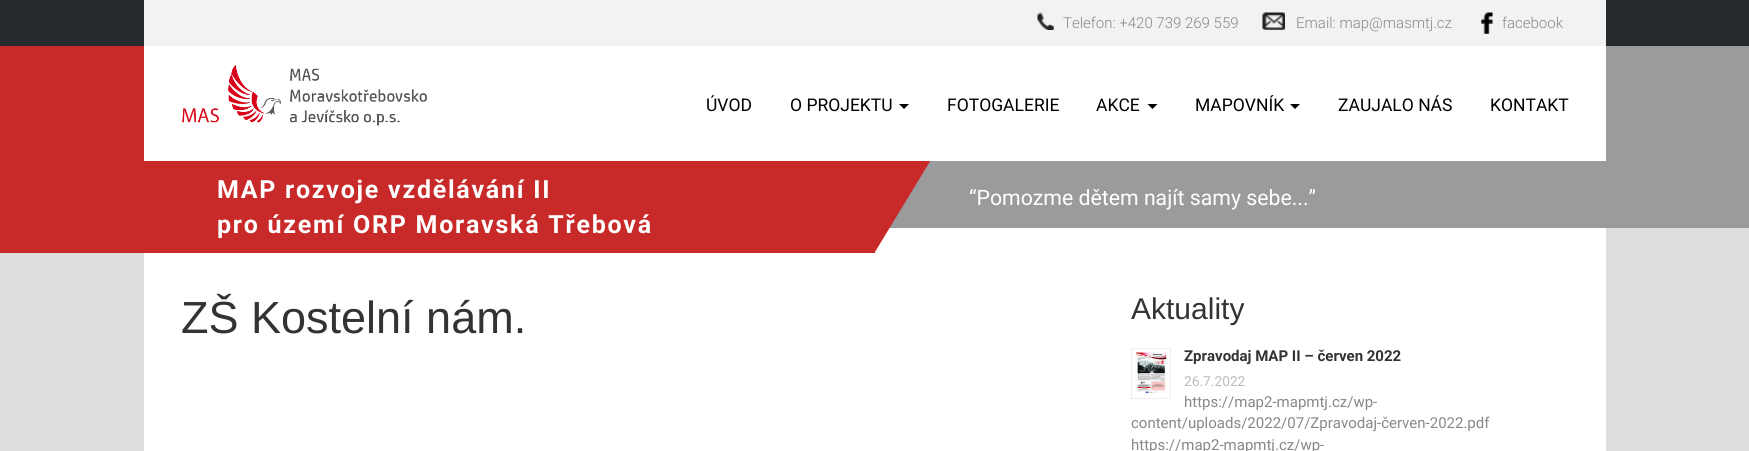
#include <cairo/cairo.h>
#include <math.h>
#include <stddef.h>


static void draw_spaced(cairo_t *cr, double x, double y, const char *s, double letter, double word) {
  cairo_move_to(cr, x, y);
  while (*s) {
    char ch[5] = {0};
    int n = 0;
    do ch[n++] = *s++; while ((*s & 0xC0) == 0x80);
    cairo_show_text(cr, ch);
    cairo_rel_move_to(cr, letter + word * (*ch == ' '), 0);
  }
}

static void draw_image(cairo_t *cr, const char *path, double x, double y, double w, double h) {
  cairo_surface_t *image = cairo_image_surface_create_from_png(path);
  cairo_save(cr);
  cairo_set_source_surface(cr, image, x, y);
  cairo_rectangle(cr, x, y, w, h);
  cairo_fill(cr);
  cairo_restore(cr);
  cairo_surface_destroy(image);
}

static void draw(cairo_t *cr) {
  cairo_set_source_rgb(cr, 222 / 255.0, 222 / 255.0, 222 / 255.0);
  cairo_paint(cr);
  cairo_set_source_rgb(cr, 38 / 255.0, 42 / 255.0, 45 / 255.0);
  cairo_rectangle(cr, 0, 0, 1749, 46);
  cairo_fill(cr);
  cairo_set_source_rgb(cr, 240 / 255.0, 242 / 255.0, 244 / 255.0);
  cairo_rectangle(cr, 144, 0, 1462, 46);
  cairo_fill(cr);
  draw_image(cr, "images/1.png", 1037, 12, 17, 18);
  draw_image(cr, "images/2.png", 1262, 12, 23, 18);
  draw_image(cr, "images/3.png", 1481, 12, 13, 22);
  cairo_set_source_rgb(cr, 1, 1, 1);
  cairo_rectangle(cr, 144, 228, 1462, 223);
  cairo_fill(cr);
  cairo_set_source_rgb(cr, 199 / 255.0, 42 / 255.0, 40 / 255.0);
  cairo_rectangle(cr, 0, 46, 875, 207);
  cairo_fill(cr);
  cairo_set_source_rgb(cr, 155 / 255.0, 155 / 255.0, 157 / 255.0);
  cairo_rectangle(cr, 889, 46, 860, 182);
  cairo_fill(cr);
  cairo_rectangle(cr, 1131.5, 348.5, 39, 50);
  cairo_set_source_rgb(cr, 238 / 255.0, 238 / 255.0, 238 / 255.0);
  cairo_set_line_width(cr, 1);
  cairo_stroke(cr);
  draw_image(cr, "images/5.png", 1136, 352, 31, 42);
  cairo_select_font_face(cr, "Roboto Light", CAIRO_FONT_SLANT_NORMAL, CAIRO_FONT_WEIGHT_NORMAL);
  cairo_set_font_size(cr, 15);
  cairo_set_source_rgb(cr, 137 / 255.0, 136 / 255.0, 136 / 255.0);
  cairo_move_to(cr, 1063, 28);
  cairo_show_text(cr, "Telefon: +420 739 269 559");
  cairo_move_to(cr, 1296, 28);
  cairo_show_text(cr, "Email: map@masmtj.cz");
  cairo_move_to(cr, 1502, 28);
  cairo_show_text(cr, "facebook");
  cairo_select_font_face(cr, "Roboto", CAIRO_FONT_SLANT_NORMAL, CAIRO_FONT_WEIGHT_BOLD);
  cairo_set_font_size(cr, 25);
  cairo_set_source_rgb(cr, 1, 1, 1);
  draw_spaced(cr, 217, 198, "MAP rozvoje vzdělávání II", 1.75, 0);
  draw_spaced(cr, 217, 233, "pro území ORP Moravská Třebová", 1.75, 0);
  cairo_select_font_face(cr, "Roboto", CAIRO_FONT_SLANT_NORMAL, CAIRO_FONT_WEIGHT_NORMAL);
  cairo_set_font_size(cr, 21.25);
  cairo_move_to(cr, 969, 205);
  cairo_show_text(cr, "“Pomozme dětem najít samy sebe...”");
  cairo_set_source_rgb(cr, 199 / 255.0, 42 / 255.0, 40 / 255.0);
  cairo_new_path(cr);
  cairo_move_to(cr, 875, 46);
  cairo_line_to(cr, 1000, 46);
  cairo_line_to(cr, 875, 252);
  cairo_close_path(cr);
  cairo_fill(cr);
  cairo_set_source_rgb(cr, 1, 1, 1);
  cairo_rectangle(cr, 144, 46, 1462, 115);
  cairo_fill(cr);
  cairo_set_font_size(cr, 17.5);
  cairo_set_source_rgb(cr, 0, 0, 0);
  cairo_move_to(cr, 1490, 111);
  cairo_show_text(cr, "KONTAKT");
  cairo_move_to(cr, 1338, 111);
  cairo_show_text(cr, "ZAUJALO NÁS");
  cairo_new_path(cr);
  cairo_move_to(cr, 1290, 104);
  cairo_line_to(cr, 1300, 104);
  cairo_line_to(cr, 1295, 109);
  cairo_close_path(cr);
  cairo_fill(cr);
  cairo_move_to(cr, 1195, 111);
  cairo_show_text(cr, "MAPOVNÍK");
  cairo_new_path(cr);
  cairo_move_to(cr, 1147.5, 104);
  cairo_line_to(cr, 1157.5, 104);
  cairo_line_to(cr, 1152.5, 109);
  cairo_close_path(cr);
  cairo_fill(cr);
  cairo_move_to(cr, 1096, 111);
  cairo_show_text(cr, "AKCE");
  cairo_move_to(cr, 947, 111);
  cairo_show_text(cr, "FOTOGALERIE");
  cairo_new_path(cr);
  cairo_move_to(cr, 899, 104);
  cairo_line_to(cr, 909, 104);
  cairo_line_to(cr, 904, 109);
  cairo_close_path(cr);
  cairo_fill(cr);
  cairo_move_to(cr, 790, 111);
  cairo_show_text(cr, "O PROJEKTU");
  cairo_move_to(cr, 706, 111);
  cairo_show_text(cr, "ÚVOD");
  draw_image(cr, "images/4.png", 182, 65, 245, 61);
  cairo_select_font_face(cr, "Liberation Sans", CAIRO_FONT_SLANT_NORMAL, CAIRO_FONT_WEIGHT_NORMAL);
  cairo_set_font_size(cr, 45);
  cairo_set_source_rgb(cr, 51 / 255.0, 51 / 255.0, 51 / 255.0);
  cairo_move_to(cr, 181, 333);
  cairo_show_text(cr, "ZŠ Kostelní nám.");
  cairo_set_font_size(cr, 30);
  cairo_move_to(cr, 1131, 319);
  cairo_show_text(cr, "Aktuality");
  cairo_select_font_face(cr, "Roboto", CAIRO_FONT_SLANT_NORMAL, CAIRO_FONT_WEIGHT_BOLD);
  cairo_set_font_size(cr, 15);
  cairo_move_to(cr, 1184, 361);
  cairo_show_text(cr, "Zpravodaj MAP II – červen 2022");
  cairo_select_font_face(cr, "Roboto", CAIRO_FONT_SLANT_NORMAL, CAIRO_FONT_WEIGHT_NORMAL);
  cairo_set_font_size(cr, 13.75);
  cairo_set_source_rgb(cr, 187 / 255.0, 187 / 255.0, 187 / 255.0);
  cairo_move_to(cr, 1184, 386);
  cairo_show_text(cr, "26.7.2022");
  cairo_set_font_size(cr, 15);
  cairo_set_source_rgb(cr, 137 / 255.0, 136 / 255.0, 136 / 255.0);
  cairo_move_to(cr, 1184, 407);
  cairo_show_text(cr, "https://map2-mapmtj.cz/wp-");
  cairo_move_to(cr, 1131, 428);
  cairo_show_text(cr, "content/uploads/2022/07/Zpravodaj-červen-2022.pdf");
  cairo_move_to(cr, 1131, 450);
  cairo_show_text(cr, "https://map2-mapmtj.cz/wp-");
}

int main(void) {
  cairo_surface_t *surface = cairo_image_surface_create(CAIRO_FORMAT_RGB24, 1749, 451);
  cairo_t *cr = cairo_create(surface);
  cairo_font_options_t *options = cairo_font_options_create();
  cairo_font_options_set_hint_metrics(options, CAIRO_HINT_METRICS_OFF);
  cairo_font_options_set_hint_style(options, CAIRO_HINT_STYLE_NONE);
  cairo_set_font_options(cr, options);
  cairo_set_miter_limit(cr, 4);
  draw(cr);
  cairo_surface_write_to_png(surface, "out.png");
  cairo_font_options_destroy(options);
  cairo_destroy(cr);
  cairo_surface_destroy(surface);
  return 0;
}
